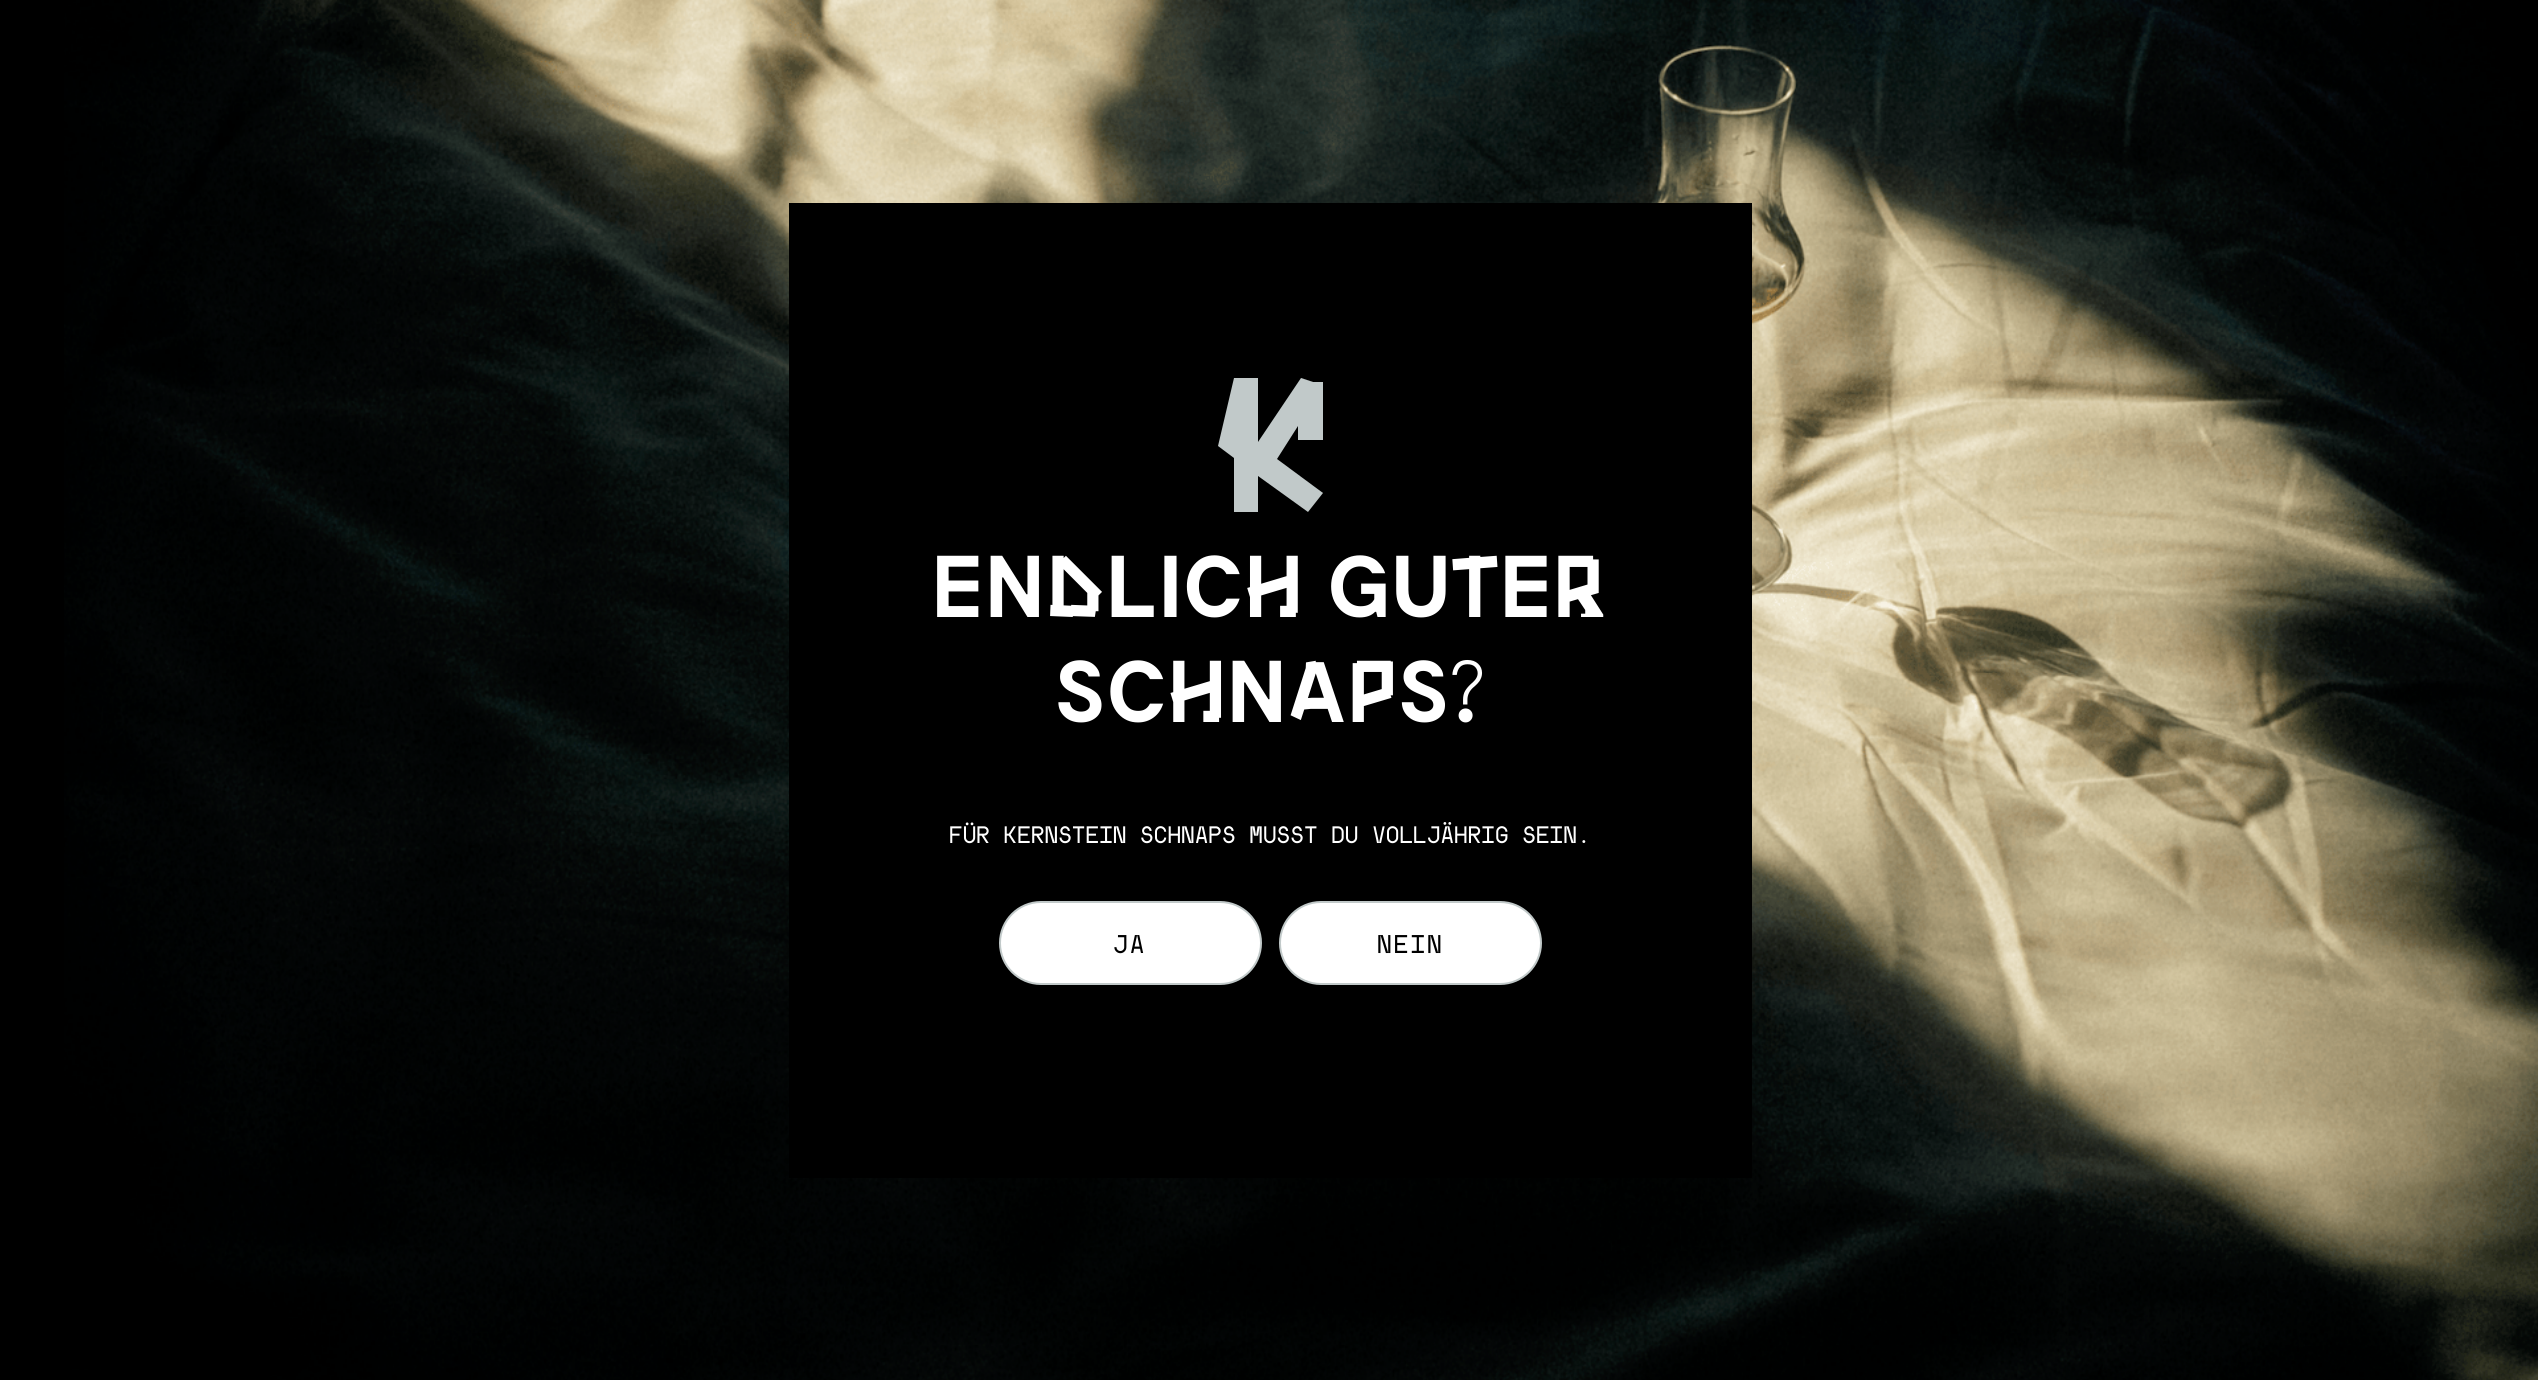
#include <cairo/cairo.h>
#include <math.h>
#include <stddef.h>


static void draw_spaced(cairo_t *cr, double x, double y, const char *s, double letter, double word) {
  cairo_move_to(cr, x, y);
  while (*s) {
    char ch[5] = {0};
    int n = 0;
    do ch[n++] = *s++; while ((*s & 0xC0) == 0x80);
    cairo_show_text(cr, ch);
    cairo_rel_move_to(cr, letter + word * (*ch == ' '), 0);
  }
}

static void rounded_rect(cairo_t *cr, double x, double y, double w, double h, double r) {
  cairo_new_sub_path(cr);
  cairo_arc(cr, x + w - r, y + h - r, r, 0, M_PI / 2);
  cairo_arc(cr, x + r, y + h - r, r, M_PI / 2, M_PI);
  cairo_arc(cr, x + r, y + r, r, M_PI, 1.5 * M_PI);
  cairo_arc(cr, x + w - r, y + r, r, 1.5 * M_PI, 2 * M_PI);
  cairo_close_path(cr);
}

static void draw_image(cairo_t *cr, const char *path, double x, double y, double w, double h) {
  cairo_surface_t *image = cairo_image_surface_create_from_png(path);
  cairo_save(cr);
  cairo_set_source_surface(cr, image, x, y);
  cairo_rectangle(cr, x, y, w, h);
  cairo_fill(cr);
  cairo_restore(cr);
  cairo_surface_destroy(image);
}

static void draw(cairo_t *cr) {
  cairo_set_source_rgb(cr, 0, 0, 0);
  cairo_paint(cr);
  draw_image(cr, "images/1.png", 64, 0, 2474, 1380);
  cairo_set_source_rgb(cr, 0, 0, 0);
  cairo_rectangle(cr, 789, 203, 963, 975);
  cairo_fill(cr);
  cairo_set_source_rgb(cr, 193 / 255.0, 201 / 255.0, 201 / 255.0);
  cairo_new_path(cr);
  cairo_move_to(cr, 1301, 378);
  cairo_line_to(cr, 1258, 442);
  cairo_line_to(cr, 1258, 378);
  cairo_line_to(cr, 1234, 378);
  cairo_line_to(cr, 1218, 446);
  cairo_line_to(cr, 1234, 458);
  cairo_line_to(cr, 1234, 512);
  cairo_line_to(cr, 1258, 512);
  cairo_line_to(cr, 1258, 476);
  cairo_line_to(cr, 1308, 512);
  cairo_line_to(cr, 1323, 493);
  cairo_line_to(cr, 1277, 459);
  cairo_line_to(cr, 1298, 426);
  cairo_line_to(cr, 1298, 440);
  cairo_line_to(cr, 1323, 440);
  cairo_line_to(cr, 1323, 382);
  cairo_line_to(cr, 1313, 382);
  cairo_close_path(cr);
  cairo_fill(cr);
  cairo_set_source_rgb(cr, 1, 1, 1);
  rounded_rect(cr, 1000, 902, 261, 82, 41);
  cairo_fill_preserve(cr);
  cairo_set_source_rgb(cr, 193 / 255.0, 201 / 255.0, 201 / 255.0);
  cairo_stroke(cr);
  cairo_set_source_rgb(cr, 1, 1, 1);
  rounded_rect(cr, 1280, 902, 261, 82, 41);
  cairo_fill_preserve(cr);
  cairo_set_source_rgb(cr, 193 / 255.0, 201 / 255.0, 201 / 255.0);
  cairo_stroke(cr);
  cairo_select_font_face(cr, "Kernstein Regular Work", CAIRO_FONT_SLANT_NORMAL, CAIRO_FONT_WEIGHT_BOLD);
  cairo_set_font_size(cr, 87.5);
  cairo_set_source_rgb(cr, 1, 1, 1);
  cairo_move_to(cr, 931, 617);
  cairo_show_text(cr, "ENDLICH GUTER");
  cairo_move_to(cr, 1054, 722);
  cairo_show_text(cr, "SCHNAPS?");
  cairo_select_font_face(cr, "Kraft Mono", CAIRO_FONT_SLANT_NORMAL, CAIRO_FONT_WEIGHT_NORMAL);
  cairo_set_font_size(cr, 22.75);
  cairo_move_to(cr, 949, 843);
  cairo_show_text(cr, "FÜR KERNSTEIN SCHNAPS MUSST DU VOLLJÄHRIG SEIN.");
  cairo_set_font_size(cr, 24.5);
  cairo_set_source_rgb(cr, 0, 0, 0);
  draw_spaced(cr, 1113, 953, "JA", 2, 0);
  draw_spaced(cr, 1377, 953, "NEIN", 2, 0);
}

int main(void) {
  cairo_surface_t *surface = cairo_image_surface_create(CAIRO_FORMAT_RGB24, 2538, 1380);
  cairo_t *cr = cairo_create(surface);
  cairo_font_options_t *options = cairo_font_options_create();
  cairo_font_options_set_hint_metrics(options, CAIRO_HINT_METRICS_OFF);
  cairo_font_options_set_hint_style(options, CAIRO_HINT_STYLE_NONE);
  cairo_set_font_options(cr, options);
  cairo_set_miter_limit(cr, 4);
  draw(cr);
  cairo_surface_write_to_png(surface, "out.png");
  cairo_font_options_destroy(options);
  cairo_destroy(cr);
  cairo_surface_destroy(surface);
  return 0;
}
